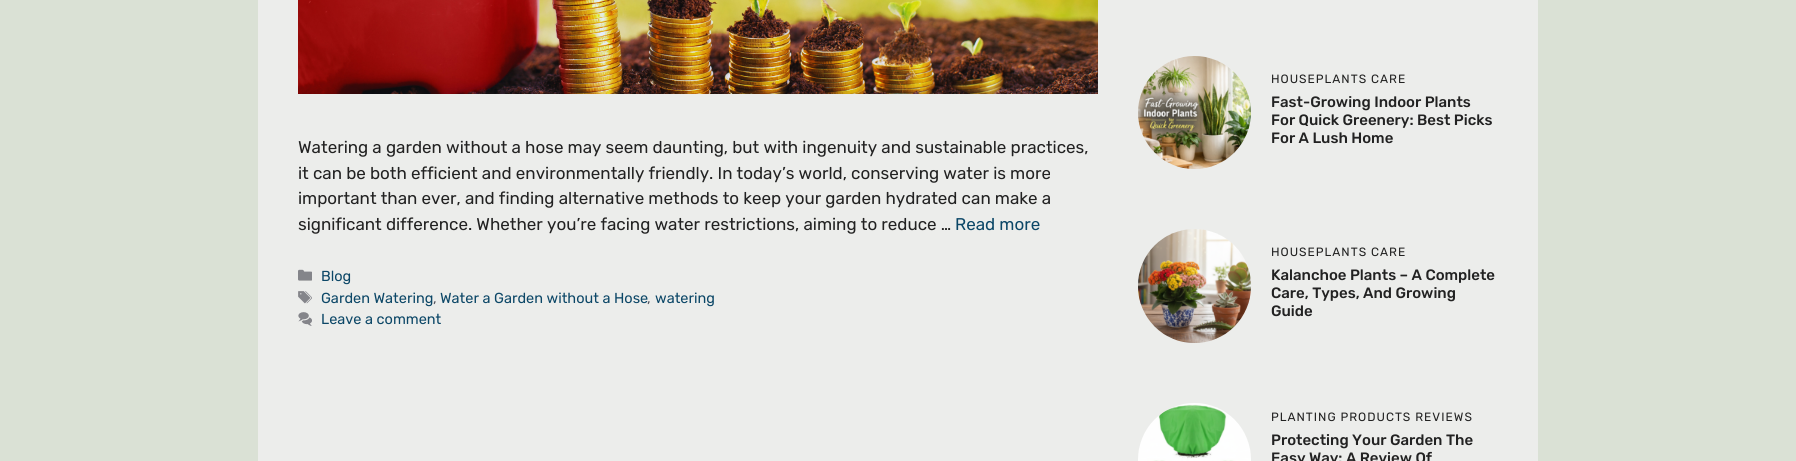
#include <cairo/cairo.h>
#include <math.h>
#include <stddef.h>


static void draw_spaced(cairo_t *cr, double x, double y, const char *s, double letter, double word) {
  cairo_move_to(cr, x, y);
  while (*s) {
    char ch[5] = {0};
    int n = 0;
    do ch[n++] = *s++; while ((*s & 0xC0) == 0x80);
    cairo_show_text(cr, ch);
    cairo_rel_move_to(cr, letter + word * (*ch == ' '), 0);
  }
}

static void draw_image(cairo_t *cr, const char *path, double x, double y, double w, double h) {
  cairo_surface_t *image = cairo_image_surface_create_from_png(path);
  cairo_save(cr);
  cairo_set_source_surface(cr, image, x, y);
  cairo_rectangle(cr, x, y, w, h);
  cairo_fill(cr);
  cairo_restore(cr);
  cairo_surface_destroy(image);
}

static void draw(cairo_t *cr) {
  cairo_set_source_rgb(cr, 218 / 255.0, 225 / 255.0, 213 / 255.0);
  cairo_paint(cr);
  cairo_set_source_rgb(cr, 236 / 255.0, 237 / 255.0, 235 / 255.0);
  cairo_rectangle(cr, 258, 0, 1280, 461);
  cairo_fill(cr);
  draw_image(cr, "images/1.png", 298, 0, 800, 94);
  draw_image(cr, "images/2.png", 298, 269, 14, 12);
  draw_image(cr, "images/3.png", 298, 291, 14, 13);
  draw_image(cr, "images/4.png", 298, 312, 14, 14);
  draw_image(cr, "images/5.png", 1138, 56, 113, 113);
  draw_image(cr, "images/6.png", 1138, 229, 113, 114);
  draw_image(cr, "images/7.png", 1138, 403, 113, 58);
  cairo_select_font_face(cr, "Rubik", CAIRO_FONT_SLANT_NORMAL, CAIRO_FONT_WEIGHT_NORMAL);
  cairo_set_font_size(cr, 17);
  cairo_set_source_rgb(cr, 34 / 255.0, 34 / 255.0, 34 / 255.0);
  cairo_move_to(cr, 298, 153);
  cairo_show_text(cr, "Watering a garden without a hose may seem daunting, but with ingenuity and sustainable practices,");
  cairo_move_to(cr, 298, 179);
  cairo_show_text(cr, "it can be both efficient and environmentally friendly. In today’s world, conserving water is more");
  cairo_move_to(cr, 298, 204);
  cairo_show_text(cr, "important than ever, and finding alternative methods to keep your garden hydrated can make a");
  cairo_move_to(cr, 298, 230);
  cairo_show_text(cr, "significant difference. Whether you’re facing water restrictions, aiming to reduce …");
  cairo_set_source_rgb(cr, 12 / 255.0, 71 / 255.0, 103 / 255.0);
  cairo_move_to(cr, 955, 230);
  cairo_show_text(cr, "Read more");
  cairo_set_font_size(cr, 14.5);
  cairo_move_to(cr, 321, 281);
  cairo_show_text(cr, "Blog");
  cairo_move_to(cr, 321, 303);
  cairo_show_text(cr, "Garden Watering");
  cairo_set_source_rgb(cr, 87 / 255.0, 87 / 255.0, 96 / 255.0);
  cairo_move_to(cr, 433, 303);
  cairo_show_text(cr, ",");
  cairo_set_source_rgb(cr, 12 / 255.0, 71 / 255.0, 103 / 255.0);
  cairo_move_to(cr, 440, 303);
  cairo_show_text(cr, "Water a Garden without a Hose");
  cairo_set_source_rgb(cr, 87 / 255.0, 87 / 255.0, 96 / 255.0);
  cairo_move_to(cr, 647, 303);
  cairo_show_text(cr, ",");
  cairo_set_source_rgb(cr, 12 / 255.0, 71 / 255.0, 103 / 255.0);
  cairo_move_to(cr, 655, 303);
  cairo_show_text(cr, "watering");
  cairo_move_to(cr, 321, 324);
  cairo_show_text(cr, "Leave a comment");
  cairo_set_font_size(cr, 12);
  cairo_set_source_rgb(cr, 34 / 255.0, 34 / 255.0, 34 / 255.0);
  draw_spaced(cr, 1271, 83, "HOUSEPLANTS CARE", 1, 0);
  cairo_select_font_face(cr, "Rubik Medium", CAIRO_FONT_SLANT_NORMAL, CAIRO_FONT_WEIGHT_NORMAL);
  cairo_set_font_size(cr, 15);
  cairo_move_to(cr, 1271, 107);
  cairo_show_text(cr, "Fast-Growing Indoor Plants");
  cairo_move_to(cr, 1271, 125);
  cairo_show_text(cr, "For Quick Greenery: Best Picks");
  cairo_move_to(cr, 1271, 143);
  cairo_show_text(cr, "For A Lush Home");
  cairo_select_font_face(cr, "Rubik", CAIRO_FONT_SLANT_NORMAL, CAIRO_FONT_WEIGHT_NORMAL);
  cairo_set_font_size(cr, 12);
  draw_spaced(cr, 1271, 256, "HOUSEPLANTS CARE", 1, 0);
  cairo_select_font_face(cr, "Rubik Medium", CAIRO_FONT_SLANT_NORMAL, CAIRO_FONT_WEIGHT_NORMAL);
  cairo_set_font_size(cr, 15);
  cairo_move_to(cr, 1271, 280);
  cairo_show_text(cr, "Kalanchoe Plants – A Complete");
  cairo_move_to(cr, 1271, 298);
  cairo_show_text(cr, "Care, Types, And Growing");
  cairo_move_to(cr, 1271, 316);
  cairo_show_text(cr, "Guide");
  cairo_select_font_face(cr, "Rubik", CAIRO_FONT_SLANT_NORMAL, CAIRO_FONT_WEIGHT_NORMAL);
  cairo_set_font_size(cr, 12);
  draw_spaced(cr, 1271, 421, "PLANTING PRODUCTS REVIEWS", 1, 0);
  cairo_select_font_face(cr, "Rubik Medium", CAIRO_FONT_SLANT_NORMAL, CAIRO_FONT_WEIGHT_NORMAL);
  cairo_set_font_size(cr, 15);
  cairo_move_to(cr, 1271, 445);
  cairo_show_text(cr, "Protecting Your Garden The");
  cairo_move_to(cr, 1271, 463);
  cairo_show_text(cr, "Easy Way: A Review Of");
}

int main(void) {
  cairo_surface_t *surface = cairo_image_surface_create(CAIRO_FORMAT_RGB24, 1796, 461);
  cairo_t *cr = cairo_create(surface);
  cairo_font_options_t *options = cairo_font_options_create();
  cairo_font_options_set_hint_metrics(options, CAIRO_HINT_METRICS_OFF);
  cairo_font_options_set_hint_style(options, CAIRO_HINT_STYLE_NONE);
  cairo_set_font_options(cr, options);
  cairo_set_miter_limit(cr, 4);
  draw(cr);
  cairo_surface_write_to_png(surface, "out.png");
  cairo_font_options_destroy(options);
  cairo_destroy(cr);
  cairo_surface_destroy(surface);
  return 0;
}
